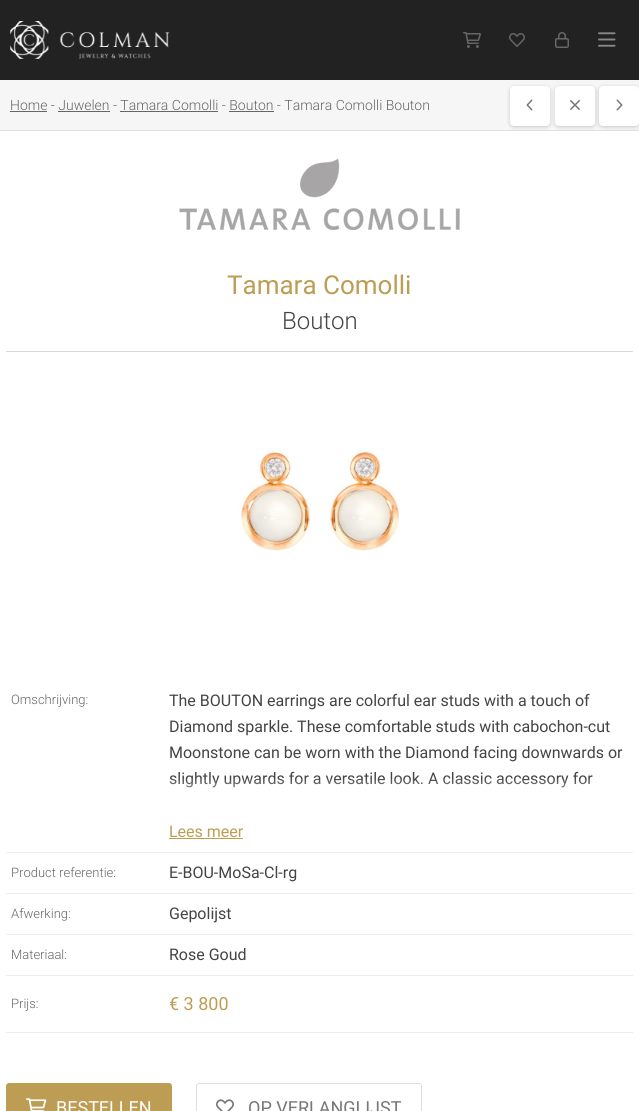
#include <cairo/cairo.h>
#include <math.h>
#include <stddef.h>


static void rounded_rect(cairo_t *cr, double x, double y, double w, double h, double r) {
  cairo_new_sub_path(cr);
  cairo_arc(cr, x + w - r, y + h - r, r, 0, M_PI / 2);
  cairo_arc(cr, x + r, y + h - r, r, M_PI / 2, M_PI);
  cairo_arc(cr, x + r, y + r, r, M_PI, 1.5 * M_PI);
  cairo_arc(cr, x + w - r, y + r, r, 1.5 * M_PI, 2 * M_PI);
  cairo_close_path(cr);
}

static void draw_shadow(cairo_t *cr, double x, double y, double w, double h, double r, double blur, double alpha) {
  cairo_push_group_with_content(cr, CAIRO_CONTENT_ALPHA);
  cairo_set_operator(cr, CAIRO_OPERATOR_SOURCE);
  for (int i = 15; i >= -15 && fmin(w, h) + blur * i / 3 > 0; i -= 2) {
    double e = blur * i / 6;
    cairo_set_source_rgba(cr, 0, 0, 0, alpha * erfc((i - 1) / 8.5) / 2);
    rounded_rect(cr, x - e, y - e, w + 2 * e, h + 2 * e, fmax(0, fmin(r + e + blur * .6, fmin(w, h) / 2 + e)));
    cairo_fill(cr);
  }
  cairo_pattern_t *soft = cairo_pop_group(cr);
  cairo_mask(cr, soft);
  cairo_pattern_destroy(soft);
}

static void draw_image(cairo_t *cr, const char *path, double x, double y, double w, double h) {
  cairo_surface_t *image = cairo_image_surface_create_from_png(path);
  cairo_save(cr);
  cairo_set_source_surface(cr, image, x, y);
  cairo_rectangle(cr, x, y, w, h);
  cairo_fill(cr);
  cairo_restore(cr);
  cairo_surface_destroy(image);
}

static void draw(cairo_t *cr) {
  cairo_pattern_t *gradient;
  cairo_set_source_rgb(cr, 246 / 255.0, 246 / 255.0, 246 / 255.0);
  cairo_paint(cr);
  cairo_set_source_rgb(cr, 34 / 255.0, 34 / 255.0, 34 / 255.0);
  cairo_rectangle(cr, 0, 0, 639, 80);
  cairo_fill(cr);
  draw_image(cr, "images/1.png", 10, 21, 160, 38);
  draw_image(cr, "images/2.png", 463, 32, 18, 16);
  draw_image(cr, "images/3.png", 509, 33, 16, 14);
  draw_image(cr, "images/4.png", 555, 32, 14, 16);
  draw_image(cr, "images/5.png", 598, 32, 18, 15);
  cairo_set_source_rgb(cr, 221 / 255.0, 225 / 255.0, 229 / 255.0);
  cairo_rectangle(cr, 0, 130, 639, 1);
  cairo_fill(cr);
  cairo_set_source_rgb(cr, 102 / 255.0, 102 / 255.0, 102 / 255.0);
  cairo_rectangle(cr, 10, 111, 37, 1);
  cairo_fill(cr);
  cairo_rectangle(cr, 58, 111, 52, 1);
  cairo_fill(cr);
  cairo_rectangle(cr, 120, 111, 98, 1);
  cairo_fill(cr);
  cairo_rectangle(cr, 229, 111, 45, 1);
  cairo_fill(cr);
  cairo_set_source_rgb(cr, 1, 1, 1);
  cairo_rectangle(cr, 0, 131, 639, 980);
  cairo_fill(cr);
  cairo_set_source_rgb(cr, 0, 0, 0);
  draw_shadow(cr, 510, 87, 40, 40, 4, 2, 0.2);
  cairo_set_source_rgb(cr, 1, 1, 1);
  rounded_rect(cr, 510, 86, 40, 40, 4);
  cairo_fill(cr);
  draw_image(cr, "images/6.png", 526, 99, 7, 12);
  cairo_set_source_rgb(cr, 0, 0, 0);
  draw_shadow(cr, 555, 87, 40, 40, 4, 2, 0.2);
  cairo_set_source_rgb(cr, 1, 1, 1);
  rounded_rect(cr, 555, 86, 40, 40, 4);
  cairo_fill(cr);
  draw_image(cr, "images/7.png", 570, 100, 10, 10);
  cairo_set_source_rgb(cr, 0, 0, 0);
  draw_shadow(cr, 599, 87, 40, 40, 4, 2, 0.2);
  cairo_set_source_rgb(cr, 1, 1, 1);
  rounded_rect(cr, 599, 86, 40, 40, 4);
  cairo_fill(cr);
  draw_image(cr, "images/8.png", 616, 99, 7, 12);
  draw_image(cr, "images/9.png", 179, 158, 281, 73);
  cairo_set_source_rgb(cr, 216 / 255.0, 216 / 255.0, 216 / 255.0);
  cairo_rectangle(cr, 6, 351, 627, 1);
  cairo_fill(cr);
  draw_image(cr, "images/10.png", 239, 448, 161, 103);
  cairo_set_source_rgb(cr, 237 / 255.0, 237 / 255.0, 237 / 255.0);
  cairo_rectangle(cr, 6, 852, 627, 1);
  cairo_fill(cr);
  cairo_set_source_rgb(cr, 188 / 255.0, 157 / 255.0, 83 / 255.0);
  cairo_rectangle(cr, 169, 838, 74, 1);
  cairo_fill(cr);
  cairo_set_source_rgb(cr, 237 / 255.0, 237 / 255.0, 237 / 255.0);
  cairo_rectangle(cr, 6, 893, 627, 1);
  cairo_fill(cr);
  cairo_rectangle(cr, 6, 934, 627, 1);
  cairo_fill(cr);
  cairo_rectangle(cr, 6, 975, 627, 1);
  cairo_fill(cr);
  cairo_rectangle(cr, 6, 1032, 627, 1);
  cairo_fill(cr);
  cairo_set_source_rgb(cr, 188 / 255.0, 157 / 255.0, 83 / 255.0);
  rounded_rect(cr, 6, 1083, 166, 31, 3);
  cairo_fill(cr);
  draw_image(cr, "images/11.png", 26, 1098, 21, 13);
  rounded_rect(cr, 196.5, 1083.5, 225, 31, 2.5);
  cairo_set_source_rgb(cr, 221 / 255.0, 221 / 255.0, 221 / 255.0);
  cairo_set_line_width(cr, 1);
  cairo_stroke(cr);
  draw_image(cr, "images/12.png", 216, 1099, 18, 12);
  cairo_select_font_face(cr, "Roboto Light", CAIRO_FONT_SLANT_NORMAL, CAIRO_FONT_WEIGHT_NORMAL);
  cairo_set_font_size(cr, 14);
  cairo_set_source_rgb(cr, 102 / 255.0, 102 / 255.0, 102 / 255.0);
  cairo_move_to(cr, 10, 110);
  cairo_show_text(cr, "Home - Juwelen - Tamara Comolli - Bouton - Tamara Comolli Bouton");
  cairo_select_font_face(cr, "Roboto", CAIRO_FONT_SLANT_NORMAL, CAIRO_FONT_WEIGHT_NORMAL);
  cairo_set_font_size(cr, 26);
  cairo_set_source_rgb(cr, 188 / 255.0, 157 / 255.0, 83 / 255.0);
  cairo_move_to(cr, 227, 294);
  cairo_show_text(cr, "Tamara Comolli");
  cairo_select_font_face(cr, "Roboto Light", CAIRO_FONT_SLANT_NORMAL, CAIRO_FONT_WEIGHT_NORMAL);
  cairo_set_font_size(cr, 24);
  cairo_set_source_rgb(cr, 68 / 255.0, 68 / 255.0, 68 / 255.0);
  cairo_move_to(cr, 282, 329);
  cairo_show_text(cr, "Bouton");
  cairo_set_font_size(cr, 13);
  cairo_set_source_rgb(cr, 102 / 255.0, 102 / 255.0, 102 / 255.0);
  cairo_move_to(cr, 11, 704);
  cairo_show_text(cr, "Omschrijving:");
  cairo_select_font_face(cr, "Roboto", CAIRO_FONT_SLANT_NORMAL, CAIRO_FONT_WEIGHT_NORMAL);
  cairo_set_font_size(cr, 16);
  cairo_set_source_rgb(cr, 68 / 255.0, 68 / 255.0, 68 / 255.0);
  cairo_move_to(cr, 169, 706);
  cairo_show_text(cr, "The BOUTON earrings are colorful ear studs with a touch of");
  cairo_move_to(cr, 169, 732);
  cairo_show_text(cr, "Diamond sparkle. These comfortable studs with cabochon-cut");
  cairo_move_to(cr, 169, 758);
  cairo_show_text(cr, "Moonstone can be worn with the Diamond facing downwards or");
  cairo_move_to(cr, 169, 784);
  cairo_show_text(cr, "slightly upwards for a versatile look. A classic accessory for");
  gradient = cairo_pattern_create_linear(401, 778, 401, 808);
  cairo_pattern_add_color_stop_rgba(gradient, 0, 1, 1, 1, 0);
  cairo_pattern_add_color_stop_rgba(gradient, 1, 1, 1, 1, 1);
  cairo_set_source(cr, gradient);
  cairo_pattern_destroy(gradient);
  cairo_rectangle(cr, 170, 779, 420, 9);
  cairo_fill(cr);
  cairo_set_source_rgb(cr, 188 / 255.0, 157 / 255.0, 83 / 255.0);
  cairo_move_to(cr, 169, 837);
  cairo_show_text(cr, "Lees meer");
  cairo_select_font_face(cr, "Roboto Light", CAIRO_FONT_SLANT_NORMAL, CAIRO_FONT_WEIGHT_NORMAL);
  cairo_set_font_size(cr, 13);
  cairo_set_source_rgb(cr, 102 / 255.0, 102 / 255.0, 102 / 255.0);
  cairo_move_to(cr, 11, 877);
  cairo_show_text(cr, "Product referentie:");
  cairo_select_font_face(cr, "Roboto", CAIRO_FONT_SLANT_NORMAL, CAIRO_FONT_WEIGHT_NORMAL);
  cairo_set_font_size(cr, 16);
  cairo_set_source_rgb(cr, 68 / 255.0, 68 / 255.0, 68 / 255.0);
  cairo_move_to(cr, 169, 878);
  cairo_show_text(cr, "E-BOU-MoSa-Cl-rg");
  cairo_select_font_face(cr, "Roboto Light", CAIRO_FONT_SLANT_NORMAL, CAIRO_FONT_WEIGHT_NORMAL);
  cairo_set_font_size(cr, 13);
  cairo_set_source_rgb(cr, 102 / 255.0, 102 / 255.0, 102 / 255.0);
  cairo_move_to(cr, 11, 918);
  cairo_show_text(cr, "Afwerking:");
  cairo_select_font_face(cr, "Roboto", CAIRO_FONT_SLANT_NORMAL, CAIRO_FONT_WEIGHT_NORMAL);
  cairo_set_font_size(cr, 16);
  cairo_set_source_rgb(cr, 68 / 255.0, 68 / 255.0, 68 / 255.0);
  cairo_move_to(cr, 169, 919);
  cairo_show_text(cr, "Gepolijst");
  cairo_select_font_face(cr, "Roboto Light", CAIRO_FONT_SLANT_NORMAL, CAIRO_FONT_WEIGHT_NORMAL);
  cairo_set_font_size(cr, 13);
  cairo_set_source_rgb(cr, 102 / 255.0, 102 / 255.0, 102 / 255.0);
  cairo_move_to(cr, 11, 959);
  cairo_show_text(cr, "Materiaal:");
  cairo_select_font_face(cr, "Roboto", CAIRO_FONT_SLANT_NORMAL, CAIRO_FONT_WEIGHT_NORMAL);
  cairo_set_font_size(cr, 16);
  cairo_set_source_rgb(cr, 68 / 255.0, 68 / 255.0, 68 / 255.0);
  cairo_move_to(cr, 169, 960);
  cairo_show_text(cr, "Rose Goud");
  cairo_select_font_face(cr, "Roboto Light", CAIRO_FONT_SLANT_NORMAL, CAIRO_FONT_WEIGHT_NORMAL);
  cairo_set_font_size(cr, 13);
  cairo_set_source_rgb(cr, 102 / 255.0, 102 / 255.0, 102 / 255.0);
  cairo_move_to(cr, 11, 1008);
  cairo_show_text(cr, "Prijs:");
  cairo_select_font_face(cr, "Roboto", CAIRO_FONT_SLANT_NORMAL, CAIRO_FONT_WEIGHT_NORMAL);
  cairo_set_font_size(cr, 18);
  cairo_set_source_rgb(cr, 188 / 255.0, 157 / 255.0, 83 / 255.0);
  cairo_move_to(cr, 169, 1010);
  cairo_show_text(cr, "€ 3 800");
  cairo_set_source_rgb(cr, 1, 1, 1);
  cairo_move_to(cr, 56, 1114);
  cairo_show_text(cr, "BESTELLEN");
  cairo_set_source_rgb(cr, 119 / 255.0, 119 / 255.0, 119 / 255.0);
  cairo_move_to(cr, 248, 1114);
  cairo_show_text(cr, "OP VERLANGLIJST");
}

int main(void) {
  cairo_surface_t *surface = cairo_image_surface_create(CAIRO_FORMAT_RGB24, 639, 1111);
  cairo_t *cr = cairo_create(surface);
  cairo_font_options_t *options = cairo_font_options_create();
  cairo_font_options_set_hint_metrics(options, CAIRO_HINT_METRICS_OFF);
  cairo_font_options_set_hint_style(options, CAIRO_HINT_STYLE_NONE);
  cairo_set_font_options(cr, options);
  cairo_set_miter_limit(cr, 4);
  draw(cr);
  cairo_surface_write_to_png(surface, "out.png");
  cairo_font_options_destroy(options);
  cairo_destroy(cr);
  cairo_surface_destroy(surface);
  return 0;
}
